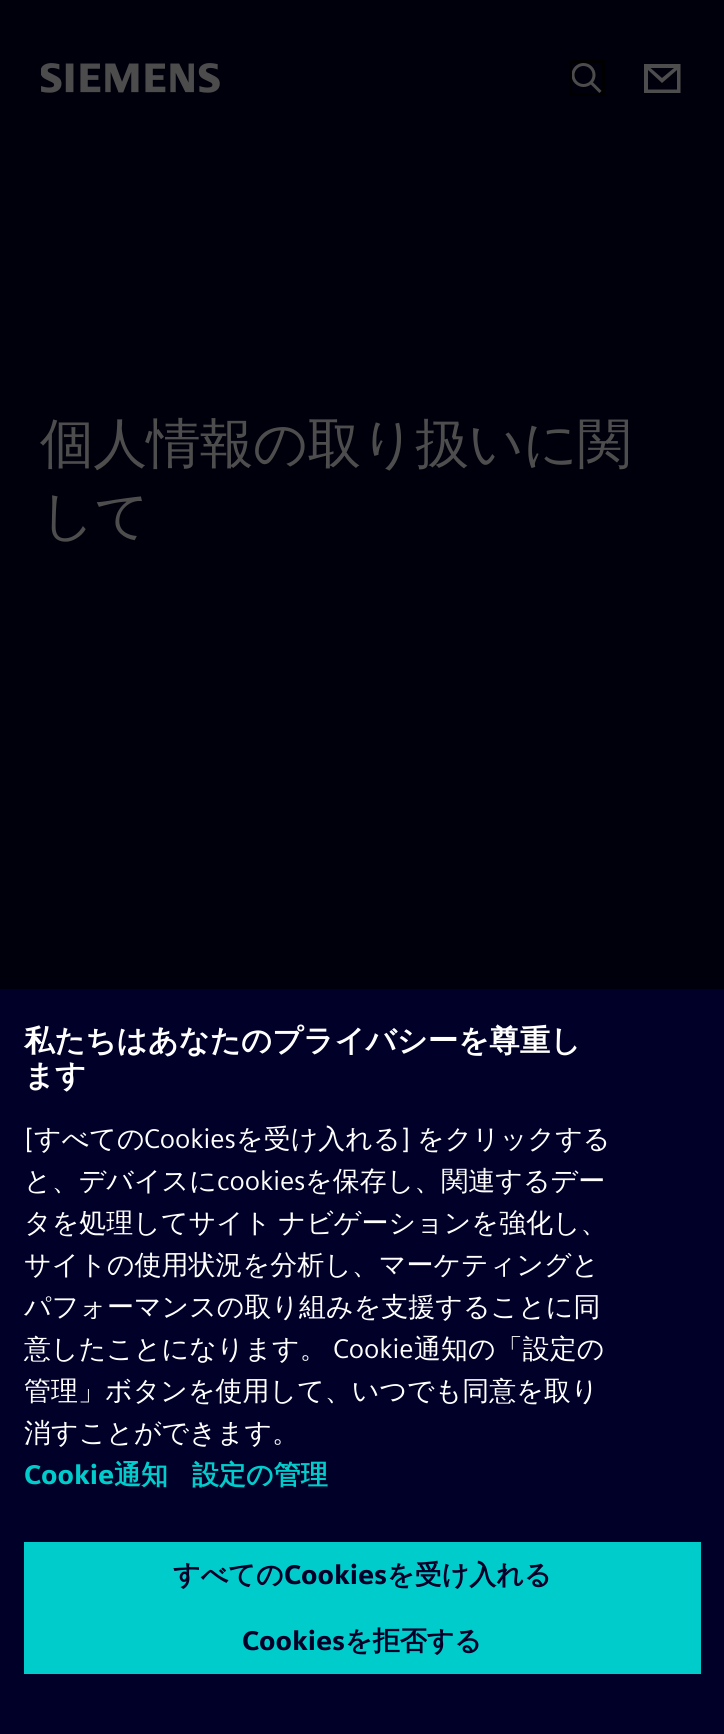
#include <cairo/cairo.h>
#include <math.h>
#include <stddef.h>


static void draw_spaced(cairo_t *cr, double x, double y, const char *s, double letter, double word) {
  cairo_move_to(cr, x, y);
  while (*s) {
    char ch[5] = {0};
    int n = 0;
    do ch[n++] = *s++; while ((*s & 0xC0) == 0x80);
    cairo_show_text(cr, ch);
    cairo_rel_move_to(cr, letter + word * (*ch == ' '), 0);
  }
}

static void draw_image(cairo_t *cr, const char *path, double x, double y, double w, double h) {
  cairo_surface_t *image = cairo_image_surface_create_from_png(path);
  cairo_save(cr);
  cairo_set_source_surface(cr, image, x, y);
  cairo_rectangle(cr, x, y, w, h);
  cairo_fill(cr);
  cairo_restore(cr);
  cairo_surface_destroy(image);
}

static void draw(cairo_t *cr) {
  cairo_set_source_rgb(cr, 0, 0, 12 / 255.0);
  cairo_paint(cr);
  draw_image(cr, "images/1.png", 41, 63, 179, 30);
  draw_image(cr, "images/2.png", 572, 63, 30, 30);
  cairo_rectangle(cr, 570.5, 61.5, 33, 33);
  cairo_set_source_rgb(cr, 0, 0, 0);
  cairo_set_line_width(cr, 3);
  cairo_stroke(cr);
  cairo_set_source_rgb(cr, 77 / 255.0, 77 / 255.0, 77 / 255.0);
  cairo_set_fill_rule(cr, CAIRO_FILL_RULE_EVEN_ODD);
  cairo_new_path(cr);
  cairo_move_to(cr, 644, 64);
  cairo_line_to(cr, 644, 93);
  cairo_line_to(cr, 680.5, 93);
  cairo_line_to(cr, 680.5, 64);
  cairo_close_path(cr);
  cairo_move_to(cr, 674, 68);
  cairo_line_to(cr, 662, 78);
  cairo_line_to(cr, 650.5, 68);
  cairo_close_path(cr);
  cairo_move_to(cr, 648, 70);
  cairo_line_to(cr, 648, 89.5);
  cairo_line_to(cr, 677, 89.5);
  cairo_line_to(cr, 677, 70);
  cairo_line_to(cr, 662, 83);
  cairo_close_path(cr);
  cairo_fill(cr);
  cairo_set_source_rgb(cr, 0, 0, 40 / 255.0);
  cairo_rectangle(cr, 0, 989, 724, 745);
  cairo_fill(cr);
  cairo_set_source_rgb(cr, 0, 204 / 255.0, 204 / 255.0);
  cairo_rectangle(cr, 24, 1542, 677, 132);
  cairo_fill(cr);
  cairo_select_font_face(cr, "WenQuanYi Zen Hei Medium", CAIRO_FONT_SLANT_NORMAL, CAIRO_FONT_WEIGHT_NORMAL);
  cairo_set_font_size(cr, 54);
  cairo_set_source_rgb(cr, 77 / 255.0, 77 / 255.0, 77 / 255.0);
  draw_spaced(cr, 40, 462, "個人情報の取り扱いに関", -0.75, 0);
  draw_spaced(cr, 40, 534, "して", -0.75, 0);
  cairo_select_font_face(cr, "WenQuanYi Zen Hei", CAIRO_FONT_SLANT_NORMAL, CAIRO_FONT_WEIGHT_BOLD);
  cairo_set_font_size(cr, 30.4);
  cairo_set_source_rgb(cr, 1, 1, 1);
  cairo_move_to(cr, 24, 1051);
  cairo_show_text(cr, "私たちはあなたのプライバシーを尊重し");
  cairo_move_to(cr, 24, 1086);
  cairo_show_text(cr, "ます");
  cairo_select_font_face(cr, "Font", CAIRO_FONT_SLANT_NORMAL, CAIRO_FONT_WEIGHT_NORMAL);
  cairo_set_font_size(cr, 27);
  cairo_move_to(cr, 24, 1148);
  cairo_show_text(cr, "[");
  cairo_select_font_face(cr, "WenQuanYi Zen Hei Medium", CAIRO_FONT_SLANT_NORMAL, CAIRO_FONT_WEIGHT_NORMAL);
  cairo_move_to(cr, 34, 1148);
  cairo_show_text(cr, "すべての");
  cairo_select_font_face(cr, "Font", CAIRO_FONT_SLANT_NORMAL, CAIRO_FONT_WEIGHT_NORMAL);
  cairo_move_to(cr, 144, 1148);
  cairo_show_text(cr, "Cookies");
  cairo_select_font_face(cr, "WenQuanYi Zen Hei Medium", CAIRO_FONT_SLANT_NORMAL, CAIRO_FONT_WEIGHT_NORMAL);
  cairo_move_to(cr, 236, 1148);
  cairo_show_text(cr, "を受け入れる");
  cairo_select_font_face(cr, "Font", CAIRO_FONT_SLANT_NORMAL, CAIRO_FONT_WEIGHT_NORMAL);
  cairo_move_to(cr, 401, 1148);
  cairo_show_text(cr, "]");
  cairo_select_font_face(cr, "WenQuanYi Zen Hei Medium", CAIRO_FONT_SLANT_NORMAL, CAIRO_FONT_WEIGHT_NORMAL);
  cairo_move_to(cr, 417, 1148);
  cairo_show_text(cr, "をクリックする");
  cairo_move_to(cr, 24, 1190);
  cairo_show_text(cr, "と、デバイスに");
  cairo_select_font_face(cr, "Font", CAIRO_FONT_SLANT_NORMAL, CAIRO_FONT_WEIGHT_NORMAL);
  cairo_move_to(cr, 217, 1190);
  cairo_show_text(cr, "cookies");
  cairo_select_font_face(cr, "WenQuanYi Zen Hei Medium", CAIRO_FONT_SLANT_NORMAL, CAIRO_FONT_WEIGHT_NORMAL);
  cairo_move_to(cr, 305, 1190);
  cairo_show_text(cr, "を保存し、関連するデー");
  draw_spaced(cr, 24, 1232, "タを処理してサイト ナビゲーションを強化し、", 0, -1);
  cairo_move_to(cr, 24, 1274);
  cairo_show_text(cr, "サイトの使用状況を分析し、マーケティングと");
  cairo_move_to(cr, 24, 1316);
  cairo_show_text(cr, "パフォーマンスの取り組みを支援することに同");
  cairo_move_to(cr, 24, 1358);
  cairo_show_text(cr, "意したことになります。");
  cairo_select_font_face(cr, "Font", CAIRO_FONT_SLANT_NORMAL, CAIRO_FONT_WEIGHT_NORMAL);
  cairo_move_to(cr, 333, 1358);
  cairo_show_text(cr, "Cookie");
  cairo_select_font_face(cr, "WenQuanYi Zen Hei Medium", CAIRO_FONT_SLANT_NORMAL, CAIRO_FONT_WEIGHT_NORMAL);
  cairo_move_to(cr, 414, 1358);
  cairo_show_text(cr, "通知の「設定の");
  cairo_move_to(cr, 24, 1400);
  cairo_show_text(cr, "管理」ボタンを使用して、いつでも同意を取り");
  cairo_move_to(cr, 24, 1442);
  cairo_show_text(cr, "消すことができます。");
  cairo_select_font_face(cr, "Font", CAIRO_FONT_SLANT_NORMAL, CAIRO_FONT_WEIGHT_BOLD);
  cairo_set_source_rgb(cr, 0, 204 / 255.0, 204 / 255.0);
  cairo_move_to(cr, 24, 1484);
  cairo_show_text(cr, "Cookie");
  cairo_select_font_face(cr, "WenQuanYi Zen Hei", CAIRO_FONT_SLANT_NORMAL, CAIRO_FONT_WEIGHT_BOLD);
  cairo_move_to(cr, 114, 1484);
  cairo_show_text(cr, "通知");
  cairo_move_to(cr, 192, 1484);
  cairo_show_text(cr, "設定の管理");
  cairo_set_source_rgb(cr, 0, 0, 40 / 255.0);
  cairo_move_to(cr, 173, 1584);
  cairo_show_text(cr, "すべての");
  cairo_select_font_face(cr, "Font", CAIRO_FONT_SLANT_NORMAL, CAIRO_FONT_WEIGHT_BOLD);
  cairo_move_to(cr, 284, 1584);
  cairo_show_text(cr, "Cookies");
  cairo_select_font_face(cr, "WenQuanYi Zen Hei", CAIRO_FONT_SLANT_NORMAL, CAIRO_FONT_WEIGHT_BOLD);
  cairo_move_to(cr, 387, 1584);
  cairo_show_text(cr, "を受け入れる");
  cairo_select_font_face(cr, "Font", CAIRO_FONT_SLANT_NORMAL, CAIRO_FONT_WEIGHT_BOLD);
  cairo_move_to(cr, 242, 1650);
  cairo_show_text(cr, "Cookies");
  cairo_select_font_face(cr, "WenQuanYi Zen Hei", CAIRO_FONT_SLANT_NORMAL, CAIRO_FONT_WEIGHT_BOLD);
  cairo_move_to(cr, 345, 1650);
  cairo_show_text(cr, "を拒否する");
}

int main(void) {
  cairo_surface_t *surface = cairo_image_surface_create(CAIRO_FORMAT_RGB24, 724, 1734);
  cairo_t *cr = cairo_create(surface);
  cairo_font_options_t *options = cairo_font_options_create();
  cairo_font_options_set_hint_metrics(options, CAIRO_HINT_METRICS_OFF);
  cairo_font_options_set_hint_style(options, CAIRO_HINT_STYLE_NONE);
  cairo_set_font_options(cr, options);
  cairo_set_miter_limit(cr, 4);
  draw(cr);
  cairo_surface_write_to_png(surface, "out.png");
  cairo_font_options_destroy(options);
  cairo_destroy(cr);
  cairo_surface_destroy(surface);
  return 0;
}
